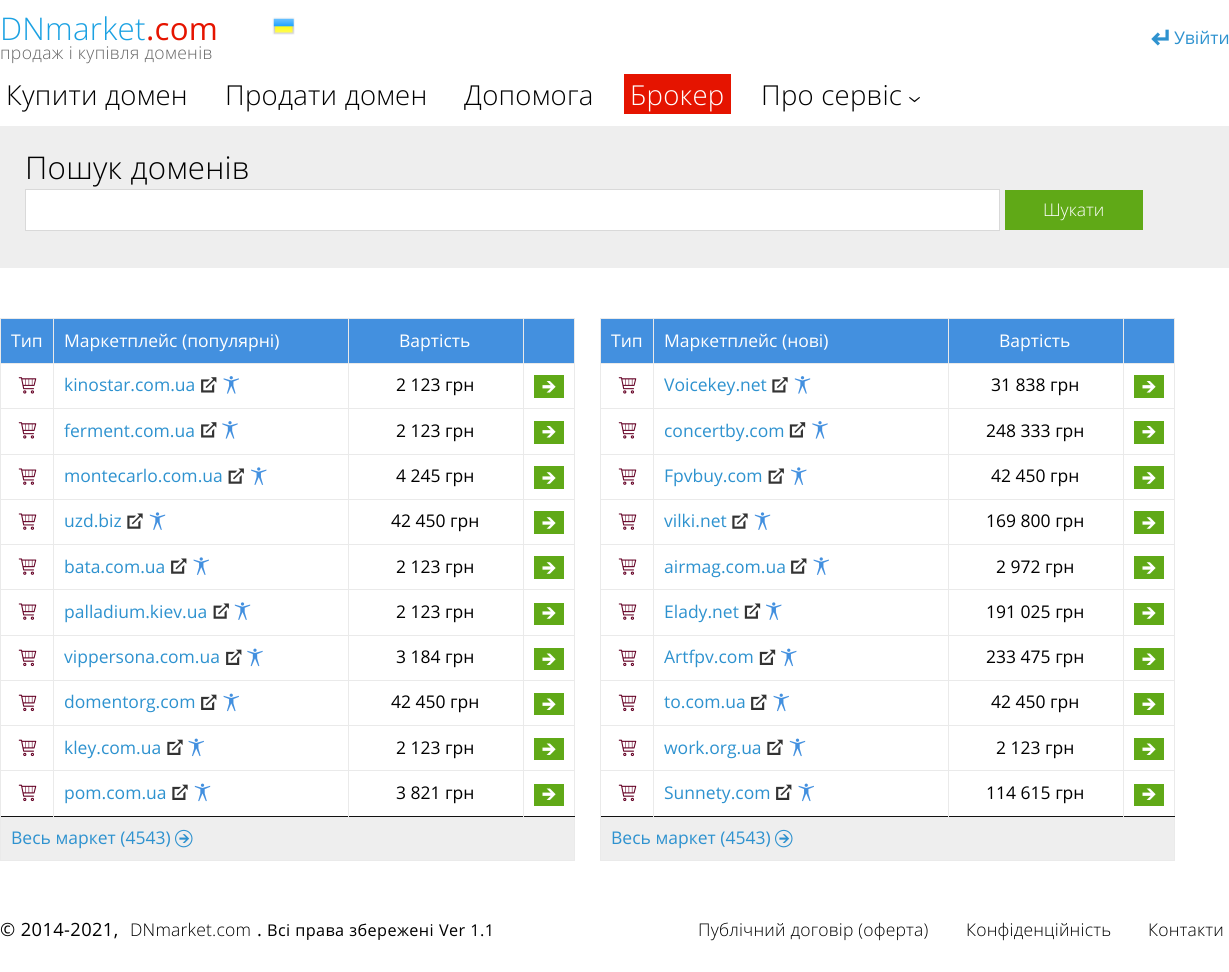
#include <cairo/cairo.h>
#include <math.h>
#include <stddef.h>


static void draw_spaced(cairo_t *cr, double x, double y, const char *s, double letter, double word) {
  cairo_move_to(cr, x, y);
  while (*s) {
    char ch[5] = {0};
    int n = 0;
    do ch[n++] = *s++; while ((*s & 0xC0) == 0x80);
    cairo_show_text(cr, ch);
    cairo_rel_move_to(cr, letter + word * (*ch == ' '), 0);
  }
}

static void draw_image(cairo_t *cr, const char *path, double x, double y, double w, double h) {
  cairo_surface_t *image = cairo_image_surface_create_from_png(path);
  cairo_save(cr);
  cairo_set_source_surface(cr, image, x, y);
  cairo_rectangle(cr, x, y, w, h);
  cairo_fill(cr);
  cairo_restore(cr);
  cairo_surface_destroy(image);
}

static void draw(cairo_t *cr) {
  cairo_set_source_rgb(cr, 1, 1, 1);
  cairo_paint(cr);
  draw_image(cr, "images/1.png", 272, 17, 23, 18);
  draw_image(cr, "images/2.png", 1151, 29, 18, 17);
  cairo_set_source_rgb(cr, 229 / 255.0, 20 / 255.0, 0);
  cairo_rectangle(cr, 624, 74, 107, 40);
  cairo_fill(cr);
  cairo_set_source_rgb(cr, 238 / 255.0, 238 / 255.0, 238 / 255.0);
  cairo_rectangle(cr, 0, 126, 1229, 142);
  cairo_fill(cr);
  cairo_set_source_rgb(cr, 1, 1, 1);
  cairo_rectangle(cr, 25.5, 189.5, 974, 41);
  cairo_fill_preserve(cr);
  cairo_set_source_rgb(cr, 217 / 255.0, 217 / 255.0, 217 / 255.0);
  cairo_set_line_width(cr, 1);
  cairo_stroke(cr);
  cairo_set_source_rgb(cr, 96 / 255.0, 169 / 255.0, 23 / 255.0);
  cairo_rectangle(cr, 1005, 190, 138, 40);
  cairo_fill(cr);
  cairo_set_source_rgb(cr, 234 / 255.0, 234 / 255.0, 234 / 255.0);
  cairo_rectangle(cr, 0, 318, 575, 1);
  cairo_fill(cr);
  cairo_rectangle(cr, 574, 318, 1, 543);
  cairo_fill(cr);
  cairo_rectangle(cr, 0, 860, 575, 1);
  cairo_fill(cr);
  cairo_set_source_rgb(cr, 67 / 255.0, 144 / 255.0, 223 / 255.0);
  cairo_rectangle(cr, 1, 319, 573, 44);
  cairo_fill(cr);
  cairo_set_source_rgb(cr, 238 / 255.0, 238 / 255.0, 238 / 255.0);
  cairo_rectangle(cr, 1, 817, 573, 43);
  cairo_fill(cr);
  cairo_set_source_rgb(cr, 17 / 255.0, 17 / 255.0, 17 / 255.0);
  cairo_rectangle(cr, 0, 816, 575, 1);
  cairo_fill(cr);
  cairo_set_source_rgb(cr, 234 / 255.0, 234 / 255.0, 234 / 255.0);
  cairo_rectangle(cr, 523, 770, 1, 48);
  cairo_fill(cr);
  cairo_rectangle(cr, 523, 770, 52, 1);
  cairo_fill(cr);
  cairo_rectangle(cr, 523, 725, 1, 46);
  cairo_fill(cr);
  cairo_rectangle(cr, 523, 725, 52, 1);
  cairo_fill(cr);
  cairo_rectangle(cr, 523, 680, 1, 46);
  cairo_fill(cr);
  cairo_rectangle(cr, 523, 680, 52, 1);
  cairo_fill(cr);
  cairo_rectangle(cr, 523, 635, 1, 46);
  cairo_fill(cr);
  cairo_rectangle(cr, 523, 635, 52, 1);
  cairo_fill(cr);
  cairo_rectangle(cr, 523, 589, 1, 47);
  cairo_fill(cr);
  cairo_rectangle(cr, 523, 589, 52, 1);
  cairo_fill(cr);
  cairo_rectangle(cr, 523, 544, 1, 46);
  cairo_fill(cr);
  cairo_rectangle(cr, 523, 544, 52, 1);
  cairo_fill(cr);
  cairo_rectangle(cr, 523, 499, 1, 46);
  cairo_fill(cr);
  cairo_rectangle(cr, 523, 499, 52, 1);
  cairo_fill(cr);
  cairo_rectangle(cr, 523, 454, 1, 46);
  cairo_fill(cr);
  cairo_rectangle(cr, 523, 454, 52, 1);
  cairo_fill(cr);
  cairo_rectangle(cr, 523, 408, 1, 47);
  cairo_fill(cr);
  cairo_rectangle(cr, 523, 408, 52, 1);
  cairo_fill(cr);
  cairo_rectangle(cr, 523, 363, 1, 46);
  cairo_fill(cr);
  cairo_rectangle(cr, 523, 363, 52, 1);
  cairo_fill(cr);
  cairo_rectangle(cr, 523, 318, 1, 46);
  cairo_fill(cr);
  cairo_rectangle(cr, 348, 770, 1, 48);
  cairo_fill(cr);
  cairo_rectangle(cr, 348, 770, 176, 1);
  cairo_fill(cr);
  cairo_rectangle(cr, 348, 725, 1, 46);
  cairo_fill(cr);
  cairo_rectangle(cr, 348, 725, 176, 1);
  cairo_fill(cr);
  cairo_rectangle(cr, 348, 680, 1, 46);
  cairo_fill(cr);
  cairo_rectangle(cr, 348, 680, 176, 1);
  cairo_fill(cr);
  cairo_rectangle(cr, 348, 635, 1, 46);
  cairo_fill(cr);
  cairo_rectangle(cr, 348, 635, 176, 1);
  cairo_fill(cr);
  cairo_rectangle(cr, 348, 589, 1, 47);
  cairo_fill(cr);
  cairo_rectangle(cr, 348, 589, 176, 1);
  cairo_fill(cr);
  cairo_rectangle(cr, 348, 544, 1, 46);
  cairo_fill(cr);
  cairo_rectangle(cr, 348, 544, 176, 1);
  cairo_fill(cr);
  cairo_rectangle(cr, 348, 499, 1, 46);
  cairo_fill(cr);
  cairo_rectangle(cr, 348, 499, 176, 1);
  cairo_fill(cr);
  cairo_rectangle(cr, 348, 454, 1, 46);
  cairo_fill(cr);
  cairo_rectangle(cr, 348, 454, 176, 1);
  cairo_fill(cr);
  cairo_rectangle(cr, 348, 408, 1, 47);
  cairo_fill(cr);
  cairo_rectangle(cr, 348, 408, 176, 1);
  cairo_fill(cr);
  cairo_rectangle(cr, 348, 363, 1, 46);
  cairo_fill(cr);
  cairo_rectangle(cr, 348, 363, 176, 1);
  cairo_fill(cr);
  cairo_rectangle(cr, 348, 318, 1, 46);
  cairo_fill(cr);
  cairo_rectangle(cr, 53, 770, 1, 48);
  cairo_fill(cr);
  cairo_rectangle(cr, 53, 770, 296, 1);
  cairo_fill(cr);
  cairo_rectangle(cr, 53, 725, 1, 46);
  cairo_fill(cr);
  cairo_rectangle(cr, 53, 725, 296, 1);
  cairo_fill(cr);
  cairo_rectangle(cr, 53, 680, 1, 46);
  cairo_fill(cr);
  cairo_rectangle(cr, 53, 680, 296, 1);
  cairo_fill(cr);
  cairo_rectangle(cr, 53, 635, 1, 46);
  cairo_fill(cr);
  cairo_rectangle(cr, 53, 635, 296, 1);
  cairo_fill(cr);
  cairo_rectangle(cr, 53, 589, 1, 47);
  cairo_fill(cr);
  cairo_rectangle(cr, 53, 589, 296, 1);
  cairo_fill(cr);
  cairo_rectangle(cr, 53, 544, 1, 46);
  cairo_fill(cr);
  cairo_rectangle(cr, 53, 544, 296, 1);
  cairo_fill(cr);
  cairo_rectangle(cr, 53, 499, 1, 46);
  cairo_fill(cr);
  cairo_rectangle(cr, 53, 499, 296, 1);
  cairo_fill(cr);
  cairo_rectangle(cr, 53, 454, 1, 46);
  cairo_fill(cr);
  cairo_rectangle(cr, 53, 454, 296, 1);
  cairo_fill(cr);
  cairo_rectangle(cr, 53, 408, 1, 47);
  cairo_fill(cr);
  cairo_rectangle(cr, 53, 408, 296, 1);
  cairo_fill(cr);
  cairo_rectangle(cr, 53, 363, 1, 46);
  cairo_fill(cr);
  cairo_rectangle(cr, 53, 363, 296, 1);
  cairo_fill(cr);
  cairo_rectangle(cr, 53, 318, 1, 46);
  cairo_fill(cr);
  cairo_rectangle(cr, 0, 770, 1, 91);
  cairo_fill(cr);
  cairo_rectangle(cr, 0, 770, 54, 1);
  cairo_fill(cr);
  cairo_rectangle(cr, 0, 725, 1, 46);
  cairo_fill(cr);
  cairo_rectangle(cr, 0, 725, 54, 1);
  cairo_fill(cr);
  cairo_rectangle(cr, 0, 680, 1, 46);
  cairo_fill(cr);
  cairo_rectangle(cr, 0, 680, 54, 1);
  cairo_fill(cr);
  cairo_rectangle(cr, 0, 635, 1, 46);
  cairo_fill(cr);
  cairo_rectangle(cr, 0, 635, 54, 1);
  cairo_fill(cr);
  cairo_rectangle(cr, 0, 589, 1, 47);
  cairo_fill(cr);
  cairo_rectangle(cr, 0, 589, 54, 1);
  cairo_fill(cr);
  cairo_rectangle(cr, 0, 544, 1, 46);
  cairo_fill(cr);
  cairo_rectangle(cr, 0, 544, 54, 1);
  cairo_fill(cr);
  cairo_rectangle(cr, 0, 499, 1, 46);
  cairo_fill(cr);
  cairo_rectangle(cr, 0, 499, 54, 1);
  cairo_fill(cr);
  cairo_rectangle(cr, 0, 454, 1, 46);
  cairo_fill(cr);
  cairo_rectangle(cr, 0, 454, 54, 1);
  cairo_fill(cr);
  cairo_rectangle(cr, 0, 408, 1, 47);
  cairo_fill(cr);
  cairo_rectangle(cr, 0, 408, 54, 1);
  cairo_fill(cr);
  cairo_rectangle(cr, 0, 363, 1, 46);
  cairo_fill(cr);
  cairo_rectangle(cr, 0, 363, 54, 1);
  cairo_fill(cr);
  cairo_rectangle(cr, 0, 318, 1, 46);
  cairo_fill(cr);
  draw_image(cr, "images/3.png", 18, 377, 19, 17);
  draw_image(cr, "images/4.png", 201, 377, 16, 16);
  draw_image(cr, "images/5.png", 223, 376, 16, 18);
  cairo_set_source_rgb(cr, 96 / 255.0, 169 / 255.0, 23 / 255.0);
  cairo_rectangle(cr, 534, 375, 30, 23);
  cairo_fill(cr);
  draw_image(cr, "images/6.png", 542, 381, 14, 12);
  draw_image(cr, "images/3.png", 18, 422, 19, 17);
  draw_image(cr, "images/4.png", 201, 422, 16, 16);
  draw_image(cr, "images/7.png", 222, 421, 16, 18);
  cairo_rectangle(cr, 534, 421, 30, 23);
  cairo_fill(cr);
  draw_image(cr, "images/6.png", 542, 426, 14, 12);
  draw_image(cr, "images/8.png", 18, 468, 19, 17);
  draw_image(cr, "images/9.png", 228, 468, 16, 16);
  draw_image(cr, "images/10.png", 251, 467, 16, 18);
  cairo_rectangle(cr, 534, 466, 30, 23);
  cairo_fill(cr);
  draw_image(cr, "images/11.png", 542, 472, 14, 12);
  draw_image(cr, "images/8.png", 18, 513, 19, 17);
  draw_image(cr, "images/12.png", 127, 513, 16, 16);
  draw_image(cr, "images/13.png", 149, 512, 17, 18);
  cairo_rectangle(cr, 534, 511, 30, 23);
  cairo_fill(cr);
  draw_image(cr, "images/11.png", 542, 517, 14, 12);
  draw_image(cr, "images/8.png", 18, 558, 19, 17);
  draw_image(cr, "images/14.png", 171, 558, 16, 16);
  draw_image(cr, "images/15.png", 193, 557, 16, 18);
  cairo_rectangle(cr, 534, 556, 30, 23);
  cairo_fill(cr);
  draw_image(cr, "images/11.png", 542, 562, 14, 12);
  draw_image(cr, "images/8.png", 18, 603, 19, 17);
  draw_image(cr, "images/9.png", 213, 603, 16, 16);
  draw_image(cr, "images/13.png", 234, 602, 17, 18);
  cairo_rectangle(cr, 534, 603, 30, 22);
  cairo_fill(cr);
  draw_image(cr, "images/11.png", 542, 607, 14, 12);
  draw_image(cr, "images/16.png", 18, 649, 19, 18);
  draw_image(cr, "images/17.png", 226, 649, 16, 16);
  draw_image(cr, "images/18.png", 247, 648, 16, 19);
  cairo_rectangle(cr, 534, 648, 30, 22);
  cairo_fill(cr);
  draw_image(cr, "images/19.png", 542, 653, 14, 12);
  draw_image(cr, "images/16.png", 18, 694, 19, 18);
  draw_image(cr, "images/17.png", 201, 694, 16, 16);
  draw_image(cr, "images/20.png", 223, 693, 16, 19);
  cairo_rectangle(cr, 534, 693, 30, 22);
  cairo_fill(cr);
  draw_image(cr, "images/19.png", 542, 698, 14, 12);
  draw_image(cr, "images/16.png", 18, 739, 19, 18);
  draw_image(cr, "images/21.png", 167, 739, 16, 16);
  draw_image(cr, "images/20.png", 188, 738, 16, 19);
  cairo_rectangle(cr, 534, 738, 30, 22);
  cairo_fill(cr);
  draw_image(cr, "images/19.png", 542, 743, 14, 12);
  draw_image(cr, "images/16.png", 18, 784, 19, 18);
  draw_image(cr, "images/21.png", 172, 784, 16, 16);
  draw_image(cr, "images/22.png", 194, 783, 17, 19);
  cairo_rectangle(cr, 534, 784, 30, 22);
  cairo_fill(cr);
  draw_image(cr, "images/19.png", 542, 788, 14, 12);
  draw_image(cr, "images/23.png", 175, 829, 18, 19);
  cairo_set_source_rgb(cr, 234 / 255.0, 234 / 255.0, 234 / 255.0);
  cairo_rectangle(cr, 600, 318, 575, 1);
  cairo_fill(cr);
  cairo_rectangle(cr, 1174, 318, 1, 543);
  cairo_fill(cr);
  cairo_rectangle(cr, 600, 860, 575, 1);
  cairo_fill(cr);
  cairo_set_source_rgb(cr, 67 / 255.0, 144 / 255.0, 223 / 255.0);
  cairo_rectangle(cr, 601, 319, 573, 44);
  cairo_fill(cr);
  cairo_set_source_rgb(cr, 238 / 255.0, 238 / 255.0, 238 / 255.0);
  cairo_rectangle(cr, 601, 817, 573, 43);
  cairo_fill(cr);
  cairo_set_source_rgb(cr, 17 / 255.0, 17 / 255.0, 17 / 255.0);
  cairo_rectangle(cr, 600, 816, 575, 1);
  cairo_fill(cr);
  cairo_set_source_rgb(cr, 234 / 255.0, 234 / 255.0, 234 / 255.0);
  cairo_rectangle(cr, 1123, 770, 1, 48);
  cairo_fill(cr);
  cairo_rectangle(cr, 1123, 770, 52, 1);
  cairo_fill(cr);
  cairo_rectangle(cr, 1123, 725, 1, 46);
  cairo_fill(cr);
  cairo_rectangle(cr, 1123, 725, 52, 1);
  cairo_fill(cr);
  cairo_rectangle(cr, 1123, 680, 1, 46);
  cairo_fill(cr);
  cairo_rectangle(cr, 1123, 680, 52, 1);
  cairo_fill(cr);
  cairo_rectangle(cr, 1123, 635, 1, 46);
  cairo_fill(cr);
  cairo_rectangle(cr, 1123, 635, 52, 1);
  cairo_fill(cr);
  cairo_rectangle(cr, 1123, 589, 1, 47);
  cairo_fill(cr);
  cairo_rectangle(cr, 1123, 589, 52, 1);
  cairo_fill(cr);
  cairo_rectangle(cr, 1123, 544, 1, 46);
  cairo_fill(cr);
  cairo_rectangle(cr, 1123, 544, 52, 1);
  cairo_fill(cr);
  cairo_rectangle(cr, 1123, 499, 1, 46);
  cairo_fill(cr);
  cairo_rectangle(cr, 1123, 499, 52, 1);
  cairo_fill(cr);
  cairo_rectangle(cr, 1123, 454, 1, 46);
  cairo_fill(cr);
  cairo_rectangle(cr, 1123, 454, 52, 1);
  cairo_fill(cr);
  cairo_rectangle(cr, 1123, 408, 1, 47);
  cairo_fill(cr);
  cairo_rectangle(cr, 1123, 408, 52, 1);
  cairo_fill(cr);
  cairo_rectangle(cr, 1123, 363, 1, 46);
  cairo_fill(cr);
  cairo_rectangle(cr, 1123, 363, 52, 1);
  cairo_fill(cr);
  cairo_rectangle(cr, 1123, 318, 1, 46);
  cairo_fill(cr);
  cairo_rectangle(cr, 948, 770, 1, 48);
  cairo_fill(cr);
  cairo_rectangle(cr, 948, 770, 176, 1);
  cairo_fill(cr);
  cairo_rectangle(cr, 948, 725, 1, 46);
  cairo_fill(cr);
  cairo_rectangle(cr, 948, 725, 176, 1);
  cairo_fill(cr);
  cairo_rectangle(cr, 948, 680, 1, 46);
  cairo_fill(cr);
  cairo_rectangle(cr, 948, 680, 176, 1);
  cairo_fill(cr);
  cairo_rectangle(cr, 948, 635, 1, 46);
  cairo_fill(cr);
  cairo_rectangle(cr, 948, 635, 176, 1);
  cairo_fill(cr);
  cairo_rectangle(cr, 948, 589, 1, 47);
  cairo_fill(cr);
  cairo_rectangle(cr, 948, 589, 176, 1);
  cairo_fill(cr);
  cairo_rectangle(cr, 948, 544, 1, 46);
  cairo_fill(cr);
  cairo_rectangle(cr, 948, 544, 176, 1);
  cairo_fill(cr);
  cairo_rectangle(cr, 948, 499, 1, 46);
  cairo_fill(cr);
  cairo_rectangle(cr, 948, 499, 176, 1);
  cairo_fill(cr);
  cairo_rectangle(cr, 948, 454, 1, 46);
  cairo_fill(cr);
  cairo_rectangle(cr, 948, 454, 176, 1);
  cairo_fill(cr);
  cairo_rectangle(cr, 948, 408, 1, 47);
  cairo_fill(cr);
  cairo_rectangle(cr, 948, 408, 176, 1);
  cairo_fill(cr);
  cairo_rectangle(cr, 948, 363, 1, 46);
  cairo_fill(cr);
  cairo_rectangle(cr, 948, 363, 176, 1);
  cairo_fill(cr);
  cairo_rectangle(cr, 948, 318, 1, 46);
  cairo_fill(cr);
  cairo_rectangle(cr, 653, 770, 1, 48);
  cairo_fill(cr);
  cairo_rectangle(cr, 653, 770, 296, 1);
  cairo_fill(cr);
  cairo_rectangle(cr, 653, 725, 1, 46);
  cairo_fill(cr);
  cairo_rectangle(cr, 653, 725, 296, 1);
  cairo_fill(cr);
  cairo_rectangle(cr, 653, 680, 1, 46);
  cairo_fill(cr);
  cairo_rectangle(cr, 653, 680, 296, 1);
  cairo_fill(cr);
  cairo_rectangle(cr, 653, 635, 1, 46);
  cairo_fill(cr);
  cairo_rectangle(cr, 653, 635, 296, 1);
  cairo_fill(cr);
  cairo_rectangle(cr, 653, 589, 1, 47);
  cairo_fill(cr);
  cairo_rectangle(cr, 653, 589, 296, 1);
  cairo_fill(cr);
  cairo_rectangle(cr, 653, 544, 1, 46);
  cairo_fill(cr);
  cairo_rectangle(cr, 653, 544, 296, 1);
  cairo_fill(cr);
  cairo_rectangle(cr, 653, 499, 1, 46);
  cairo_fill(cr);
  cairo_rectangle(cr, 653, 499, 296, 1);
  cairo_fill(cr);
  cairo_rectangle(cr, 653, 454, 1, 46);
  cairo_fill(cr);
  cairo_rectangle(cr, 653, 454, 296, 1);
  cairo_fill(cr);
  cairo_rectangle(cr, 653, 408, 1, 47);
  cairo_fill(cr);
  cairo_rectangle(cr, 653, 408, 296, 1);
  cairo_fill(cr);
  cairo_rectangle(cr, 653, 363, 1, 46);
  cairo_fill(cr);
  cairo_rectangle(cr, 653, 363, 296, 1);
  cairo_fill(cr);
  cairo_rectangle(cr, 653, 318, 1, 46);
  cairo_fill(cr);
  cairo_rectangle(cr, 600, 770, 1, 91);
  cairo_fill(cr);
  cairo_rectangle(cr, 600, 770, 54, 1);
  cairo_fill(cr);
  cairo_rectangle(cr, 600, 725, 1, 46);
  cairo_fill(cr);
  cairo_rectangle(cr, 600, 725, 54, 1);
  cairo_fill(cr);
  cairo_rectangle(cr, 600, 680, 1, 46);
  cairo_fill(cr);
  cairo_rectangle(cr, 600, 680, 54, 1);
  cairo_fill(cr);
  cairo_rectangle(cr, 600, 635, 1, 46);
  cairo_fill(cr);
  cairo_rectangle(cr, 600, 635, 54, 1);
  cairo_fill(cr);
  cairo_rectangle(cr, 600, 589, 1, 47);
  cairo_fill(cr);
  cairo_rectangle(cr, 600, 589, 54, 1);
  cairo_fill(cr);
  cairo_rectangle(cr, 600, 544, 1, 46);
  cairo_fill(cr);
  cairo_rectangle(cr, 600, 544, 54, 1);
  cairo_fill(cr);
  cairo_rectangle(cr, 600, 499, 1, 46);
  cairo_fill(cr);
  cairo_rectangle(cr, 600, 499, 54, 1);
  cairo_fill(cr);
  cairo_rectangle(cr, 600, 454, 1, 46);
  cairo_fill(cr);
  cairo_rectangle(cr, 600, 454, 54, 1);
  cairo_fill(cr);
  cairo_rectangle(cr, 600, 408, 1, 47);
  cairo_fill(cr);
  cairo_rectangle(cr, 600, 408, 54, 1);
  cairo_fill(cr);
  cairo_rectangle(cr, 600, 363, 1, 46);
  cairo_fill(cr);
  cairo_rectangle(cr, 600, 363, 54, 1);
  cairo_fill(cr);
  cairo_rectangle(cr, 600, 318, 1, 46);
  cairo_fill(cr);
  draw_image(cr, "images/3.png", 618, 377, 19, 17);
  draw_image(cr, "images/24.png", 772, 377, 16, 16);
  draw_image(cr, "images/25.png", 794, 376, 17, 18);
  cairo_set_source_rgb(cr, 96 / 255.0, 169 / 255.0, 23 / 255.0);
  cairo_rectangle(cr, 1134, 375, 30, 23);
  cairo_fill(cr);
  draw_image(cr, "images/6.png", 1142, 381, 14, 12);
  draw_image(cr, "images/3.png", 618, 422, 19, 17);
  draw_image(cr, "images/26.png", 789, 422, 17, 16);
  draw_image(cr, "images/7.png", 812, 421, 16, 18);
  cairo_rectangle(cr, 1134, 421, 30, 23);
  cairo_fill(cr);
  draw_image(cr, "images/6.png", 1142, 426, 14, 12);
  draw_image(cr, "images/8.png", 618, 468, 19, 17);
  draw_image(cr, "images/9.png", 768, 468, 16, 16);
  draw_image(cr, "images/10.png", 791, 467, 16, 18);
  cairo_rectangle(cr, 1134, 466, 30, 23);
  cairo_fill(cr);
  draw_image(cr, "images/11.png", 1142, 472, 14, 12);
  draw_image(cr, "images/8.png", 618, 513, 19, 17);
  draw_image(cr, "images/12.png", 732, 513, 16, 16);
  draw_image(cr, "images/13.png", 754, 512, 17, 18);
  cairo_rectangle(cr, 1134, 511, 30, 23);
  cairo_fill(cr);
  draw_image(cr, "images/11.png", 1142, 517, 14, 12);
  draw_image(cr, "images/8.png", 618, 558, 19, 17);
  draw_image(cr, "images/14.png", 791, 558, 16, 16);
  draw_image(cr, "images/15.png", 813, 557, 16, 18);
  cairo_rectangle(cr, 1134, 556, 30, 23);
  cairo_fill(cr);
  draw_image(cr, "images/11.png", 1142, 562, 14, 12);
  draw_image(cr, "images/8.png", 618, 603, 19, 17);
  draw_image(cr, "images/27.png", 744, 603, 17, 16);
  draw_image(cr, "images/10.png", 766, 602, 16, 18);
  cairo_rectangle(cr, 1134, 603, 30, 22);
  cairo_fill(cr);
  draw_image(cr, "images/11.png", 1142, 607, 14, 12);
  draw_image(cr, "images/16.png", 618, 649, 19, 18);
  draw_image(cr, "images/28.png", 759, 649, 17, 16);
  draw_image(cr, "images/29.png", 781, 648, 16, 19);
  cairo_rectangle(cr, 1134, 648, 30, 22);
  cairo_fill(cr);
  draw_image(cr, "images/19.png", 1142, 653, 14, 12);
  draw_image(cr, "images/16.png", 618, 694, 19, 18);
  draw_image(cr, "images/17.png", 751, 694, 16, 16);
  draw_image(cr, "images/20.png", 773, 693, 16, 19);
  cairo_rectangle(cr, 1134, 693, 30, 22);
  cairo_fill(cr);
  draw_image(cr, "images/19.png", 1142, 698, 14, 12);
  draw_image(cr, "images/16.png", 618, 739, 19, 18);
  draw_image(cr, "images/21.png", 767, 739, 16, 16);
  draw_image(cr, "images/22.png", 789, 738, 17, 19);
  cairo_rectangle(cr, 1134, 738, 30, 22);
  cairo_fill(cr);
  draw_image(cr, "images/19.png", 1142, 743, 14, 12);
  draw_image(cr, "images/16.png", 618, 784, 19, 18);
  draw_image(cr, "images/17.png", 776, 784, 16, 16);
  draw_image(cr, "images/20.png", 798, 783, 16, 19);
  cairo_rectangle(cr, 1134, 784, 30, 22);
  cairo_fill(cr);
  draw_image(cr, "images/19.png", 1142, 788, 14, 12);
  draw_image(cr, "images/23.png", 775, 829, 18, 19);
  cairo_select_font_face(cr, "Open Sans Light", CAIRO_FONT_SLANT_NORMAL, CAIRO_FONT_WEIGHT_NORMAL);
  cairo_set_font_size(cr, 31.25);
  cairo_set_source_rgb(cr, 27 / 255.0, 161 / 255.0, 226 / 255.0);
  draw_spaced(cr, 0, 40, "DNmarket", 0.25, 0);
  cairo_select_font_face(cr, "Open Sans", CAIRO_FONT_SLANT_NORMAL, CAIRO_FONT_WEIGHT_NORMAL);
  cairo_set_source_rgb(cr, 229 / 255.0, 20 / 255.0, 0);
  draw_spaced(cr, 146, 40, ".com", 0.25, 0);
  cairo_select_font_face(cr, "Open Sans Light", CAIRO_FONT_SLANT_NORMAL, CAIRO_FONT_WEIGHT_NORMAL);
  cairo_set_font_size(cr, 17.5);
  cairo_set_source_rgb(cr, 102 / 255.0, 102 / 255.0, 102 / 255.0);
  draw_spaced(cr, 0, 59, "продаж і купівля доменів", 0.35, 0);
  cairo_select_font_face(cr, "Open Sans", CAIRO_FONT_SLANT_NORMAL, CAIRO_FONT_WEIGHT_NORMAL);
  cairo_set_source_rgb(cr, 46 / 255.0, 146 / 255.0, 207 / 255.0);
  cairo_move_to(cr, 1174, 44);
  cairo_show_text(cr, "Увійти");
  cairo_select_font_face(cr, "Open Sans Light", CAIRO_FONT_SLANT_NORMAL, CAIRO_FONT_WEIGHT_NORMAL);
  cairo_set_font_size(cr, 27.5);
  cairo_set_source_rgb(cr, 0, 0, 0);
  draw_spaced(cr, 6, 105, "Купити домен", 0.25, 0);
  draw_spaced(cr, 225, 105, "Продати домен", 0.25, 0);
  draw_spaced(cr, 464, 105, "Допомога", 0.25, 0);
  cairo_set_source_rgb(cr, 1, 1, 1);
  draw_spaced(cr, 630, 105, "Брокер", 0.25, 0);
  cairo_set_source_rgb(cr, 0, 0, 0);
  draw_spaced(cr, 761, 105, "Про сервіс", 0.25, 0);
  cairo_save(cr);
  cairo_translate(cr, 907, 96);
  cairo_rotate(cr, 90 * M_PI / 180);
  draw_spaced(cr, 0, 0, "›", 0.25, 0);
  cairo_restore(cr);
  cairo_set_font_size(cr, 31.25);
  draw_spaced(cr, 25, 179, "Пошук доменів", 0.25, 0);
  cairo_set_font_size(cr, 17.5);
  cairo_set_source_rgb(cr, 1, 1, 1);
  cairo_move_to(cr, 1043, 216);
  cairo_show_text(cr, "Шукати");
  cairo_select_font_face(cr, "Open Sans", CAIRO_FONT_SLANT_NORMAL, CAIRO_FONT_WEIGHT_NORMAL);
  cairo_move_to(cr, 11, 347);
  cairo_show_text(cr, "Тип");
  cairo_move_to(cr, 64, 347);
  cairo_show_text(cr, "Маркетплейс (популярні)");
  cairo_move_to(cr, 399, 347);
  cairo_show_text(cr, "Вартість");
  cairo_set_source_rgb(cr, 46 / 255.0, 146 / 255.0, 207 / 255.0);
  cairo_move_to(cr, 64, 391);
  cairo_show_text(cr, "kinostar.com.ua");
  cairo_set_source_rgb(cr, 0, 0, 0);
  cairo_move_to(cr, 396, 391);
  cairo_show_text(cr, "2 123 грн");
  cairo_set_source_rgb(cr, 46 / 255.0, 146 / 255.0, 207 / 255.0);
  cairo_move_to(cr, 64, 437);
  cairo_show_text(cr, "ferment.com.ua");
  cairo_set_source_rgb(cr, 0, 0, 0);
  cairo_move_to(cr, 396, 437);
  cairo_show_text(cr, "2 123 грн");
  cairo_set_source_rgb(cr, 46 / 255.0, 146 / 255.0, 207 / 255.0);
  cairo_move_to(cr, 64, 482);
  cairo_show_text(cr, "montecarlo.com.ua");
  cairo_set_source_rgb(cr, 0, 0, 0);
  cairo_move_to(cr, 396, 482);
  cairo_show_text(cr, "4 245 грн");
  cairo_set_source_rgb(cr, 46 / 255.0, 146 / 255.0, 207 / 255.0);
  cairo_move_to(cr, 64, 527);
  cairo_show_text(cr, "uzd.biz");
  cairo_set_source_rgb(cr, 0, 0, 0);
  cairo_move_to(cr, 391, 527);
  cairo_show_text(cr, "42 450 грн");
  cairo_set_source_rgb(cr, 46 / 255.0, 146 / 255.0, 207 / 255.0);
  cairo_move_to(cr, 64, 573);
  cairo_show_text(cr, "bata.com.ua");
  cairo_set_source_rgb(cr, 0, 0, 0);
  cairo_move_to(cr, 396, 573);
  cairo_show_text(cr, "2 123 грн");
  cairo_set_source_rgb(cr, 46 / 255.0, 146 / 255.0, 207 / 255.0);
  cairo_move_to(cr, 64, 618);
  cairo_show_text(cr, "palladium.kiev.ua");
  cairo_set_source_rgb(cr, 0, 0, 0);
  cairo_move_to(cr, 396, 618);
  cairo_show_text(cr, "2 123 грн");
  cairo_set_source_rgb(cr, 46 / 255.0, 146 / 255.0, 207 / 255.0);
  cairo_move_to(cr, 64, 663);
  cairo_show_text(cr, "vippersona.com.ua");
  cairo_set_source_rgb(cr, 0, 0, 0);
  cairo_move_to(cr, 396, 663);
  cairo_show_text(cr, "3 184 грн");
  cairo_set_source_rgb(cr, 46 / 255.0, 146 / 255.0, 207 / 255.0);
  cairo_move_to(cr, 64, 708);
  cairo_show_text(cr, "domentorg.com");
  cairo_set_source_rgb(cr, 0, 0, 0);
  cairo_move_to(cr, 391, 708);
  cairo_show_text(cr, "42 450 грн");
  cairo_set_source_rgb(cr, 46 / 255.0, 146 / 255.0, 207 / 255.0);
  cairo_move_to(cr, 64, 754);
  cairo_show_text(cr, "kley.com.ua");
  cairo_set_source_rgb(cr, 0, 0, 0);
  cairo_move_to(cr, 396, 754);
  cairo_show_text(cr, "2 123 грн");
  cairo_set_source_rgb(cr, 46 / 255.0, 146 / 255.0, 207 / 255.0);
  cairo_move_to(cr, 64, 799);
  cairo_show_text(cr, "pom.com.ua");
  cairo_set_source_rgb(cr, 0, 0, 0);
  cairo_move_to(cr, 396, 799);
  cairo_show_text(cr, "3 821 грн");
  cairo_set_source_rgb(cr, 46 / 255.0, 146 / 255.0, 207 / 255.0);
  cairo_move_to(cr, 11, 844);
  cairo_show_text(cr, "Весь маркет (4543)");
  cairo_set_source_rgb(cr, 1, 1, 1);
  cairo_move_to(cr, 611, 347);
  cairo_show_text(cr, "Тип");
  cairo_move_to(cr, 664, 347);
  cairo_show_text(cr, "Маркетплейс (нові)");
  cairo_move_to(cr, 999, 347);
  cairo_show_text(cr, "Вартість");
  cairo_set_source_rgb(cr, 46 / 255.0, 146 / 255.0, 207 / 255.0);
  cairo_move_to(cr, 664, 391);
  cairo_show_text(cr, "Voicekey.net");
  cairo_set_source_rgb(cr, 0, 0, 0);
  cairo_move_to(cr, 991, 391);
  cairo_show_text(cr, "31 838 грн");
  cairo_set_source_rgb(cr, 46 / 255.0, 146 / 255.0, 207 / 255.0);
  cairo_move_to(cr, 664, 437);
  cairo_show_text(cr, "concertby.com");
  cairo_set_source_rgb(cr, 0, 0, 0);
  cairo_move_to(cr, 986, 437);
  cairo_show_text(cr, "248 333 грн");
  cairo_set_source_rgb(cr, 46 / 255.0, 146 / 255.0, 207 / 255.0);
  cairo_move_to(cr, 664, 482);
  cairo_show_text(cr, "Fpvbuy.com");
  cairo_set_source_rgb(cr, 0, 0, 0);
  cairo_move_to(cr, 991, 482);
  cairo_show_text(cr, "42 450 грн");
  cairo_set_source_rgb(cr, 46 / 255.0, 146 / 255.0, 207 / 255.0);
  cairo_move_to(cr, 664, 527);
  cairo_show_text(cr, "vilki.net");
  cairo_set_source_rgb(cr, 0, 0, 0);
  cairo_move_to(cr, 986, 527);
  cairo_show_text(cr, "169 800 грн");
  cairo_set_source_rgb(cr, 46 / 255.0, 146 / 255.0, 207 / 255.0);
  cairo_move_to(cr, 664, 573);
  cairo_show_text(cr, "airmag.com.ua");
  cairo_set_source_rgb(cr, 0, 0, 0);
  cairo_move_to(cr, 996, 573);
  cairo_show_text(cr, "2 972 грн");
  cairo_set_source_rgb(cr, 46 / 255.0, 146 / 255.0, 207 / 255.0);
  cairo_move_to(cr, 664, 618);
  cairo_show_text(cr, "Elady.net");
  cairo_set_source_rgb(cr, 0, 0, 0);
  cairo_move_to(cr, 986, 618);
  cairo_show_text(cr, "191 025 грн");
  cairo_set_source_rgb(cr, 46 / 255.0, 146 / 255.0, 207 / 255.0);
  cairo_move_to(cr, 664, 663);
  cairo_show_text(cr, "Artfpv.com");
  cairo_set_source_rgb(cr, 0, 0, 0);
  cairo_move_to(cr, 986, 663);
  cairo_show_text(cr, "233 475 грн");
  cairo_set_source_rgb(cr, 46 / 255.0, 146 / 255.0, 207 / 255.0);
  cairo_move_to(cr, 664, 708);
  cairo_show_text(cr, "to.com.ua");
  cairo_set_source_rgb(cr, 0, 0, 0);
  cairo_move_to(cr, 991, 708);
  cairo_show_text(cr, "42 450 грн");
  cairo_set_source_rgb(cr, 46 / 255.0, 146 / 255.0, 207 / 255.0);
  cairo_move_to(cr, 664, 754);
  cairo_show_text(cr, "work.org.ua");
  cairo_set_source_rgb(cr, 0, 0, 0);
  cairo_move_to(cr, 996, 754);
  cairo_show_text(cr, "2 123 грн");
  cairo_set_source_rgb(cr, 46 / 255.0, 146 / 255.0, 207 / 255.0);
  cairo_move_to(cr, 664, 799);
  cairo_show_text(cr, "Sunnety.com");
  cairo_set_source_rgb(cr, 0, 0, 0);
  cairo_move_to(cr, 986, 799);
  cairo_show_text(cr, "114 615 грн");
  cairo_set_source_rgb(cr, 46 / 255.0, 146 / 255.0, 207 / 255.0);
  cairo_move_to(cr, 611, 844);
  cairo_show_text(cr, "Весь маркет (4543)");
  cairo_set_font_size(cr, 18.25);
  cairo_set_source_rgb(cr, 0, 0, 0);
  draw_spaced(cr, 0, 936, "© 2014-2021,", 0.4, 0);
  cairo_select_font_face(cr, "Open Sans Light", CAIRO_FONT_SLANT_NORMAL, CAIRO_FONT_WEIGHT_NORMAL);
  cairo_set_font_size(cr, 17.5);
  draw_spaced(cr, 130, 936, "DNmarket.com", 0.2, 0);
  cairo_select_font_face(cr, "Open Sans", CAIRO_FONT_SLANT_NORMAL, CAIRO_FONT_WEIGHT_NORMAL);
  cairo_set_font_size(cr, 18.25);
  draw_spaced(cr, 257, 936, ".", 0.4, 0);
  cairo_set_font_size(cr, 16.25);
  draw_spaced(cr, 267, 936, "Всі права збережені", 0.4, 0);
  draw_spaced(cr, 439, 936, "Ver 1.1", 0.4, 0);
  cairo_select_font_face(cr, "Open Sans Light", CAIRO_FONT_SLANT_NORMAL, CAIRO_FONT_WEIGHT_NORMAL);
  cairo_set_font_size(cr, 17.5);
  draw_spaced(cr, 698, 936, "Публічний договір (оферта)", 0.2, 0);
  draw_spaced(cr, 966, 936, "Конфіденційність", 0.2, 0);
  draw_spaced(cr, 1148, 936, "Контакти", 0.2, 0);
}

int main(void) {
  cairo_surface_t *surface = cairo_image_surface_create(CAIRO_FORMAT_RGB24, 1229, 972);
  cairo_t *cr = cairo_create(surface);
  cairo_font_options_t *options = cairo_font_options_create();
  cairo_font_options_set_hint_metrics(options, CAIRO_HINT_METRICS_OFF);
  cairo_font_options_set_hint_style(options, CAIRO_HINT_STYLE_NONE);
  cairo_set_font_options(cr, options);
  cairo_set_miter_limit(cr, 4);
  draw(cr);
  cairo_surface_write_to_png(surface, "out.png");
  cairo_font_options_destroy(options);
  cairo_destroy(cr);
  cairo_surface_destroy(surface);
  return 0;
}
